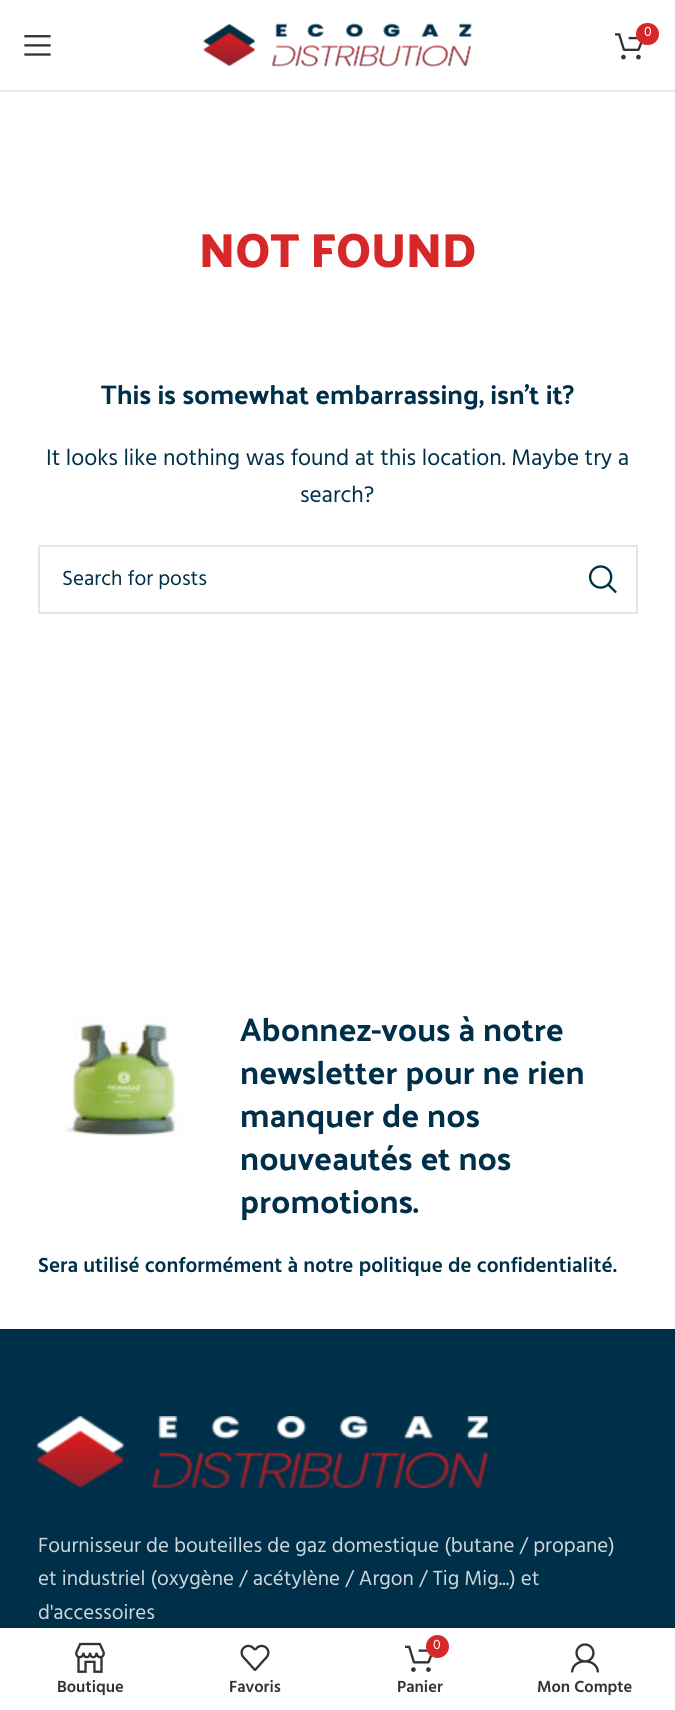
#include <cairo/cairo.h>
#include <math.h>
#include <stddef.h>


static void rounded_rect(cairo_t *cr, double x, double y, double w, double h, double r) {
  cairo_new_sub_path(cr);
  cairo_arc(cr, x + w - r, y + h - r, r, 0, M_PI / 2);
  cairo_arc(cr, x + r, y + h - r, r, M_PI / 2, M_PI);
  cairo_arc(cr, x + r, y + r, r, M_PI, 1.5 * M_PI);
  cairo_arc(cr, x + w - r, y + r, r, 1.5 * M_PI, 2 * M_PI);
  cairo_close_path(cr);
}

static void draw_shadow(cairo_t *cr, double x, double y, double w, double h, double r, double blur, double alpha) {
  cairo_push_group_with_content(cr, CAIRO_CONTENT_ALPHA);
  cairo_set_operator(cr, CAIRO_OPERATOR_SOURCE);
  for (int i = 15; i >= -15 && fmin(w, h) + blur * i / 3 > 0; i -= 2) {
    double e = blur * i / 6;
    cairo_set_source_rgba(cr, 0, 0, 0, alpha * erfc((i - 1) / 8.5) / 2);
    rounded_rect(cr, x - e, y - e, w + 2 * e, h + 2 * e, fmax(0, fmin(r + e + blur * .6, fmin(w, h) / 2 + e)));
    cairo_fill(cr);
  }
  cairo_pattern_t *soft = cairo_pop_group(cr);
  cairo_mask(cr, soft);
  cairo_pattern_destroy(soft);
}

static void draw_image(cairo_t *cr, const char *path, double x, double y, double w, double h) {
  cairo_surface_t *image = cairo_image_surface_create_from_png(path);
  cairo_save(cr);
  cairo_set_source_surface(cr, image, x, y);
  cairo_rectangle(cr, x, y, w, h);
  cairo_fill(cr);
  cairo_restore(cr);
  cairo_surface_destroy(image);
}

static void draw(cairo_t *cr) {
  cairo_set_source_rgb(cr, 1, 1, 1);
  cairo_paint(cr);
  cairo_set_source_rgb(cr, 232 / 255.0, 232 / 255.0, 232 / 255.0);
  cairo_rectangle(cr, 0, 90, 675, 2);
  cairo_fill(cr);
  draw_image(cr, "images/1.png", 203, 23, 269, 44);
  draw_image(cr, "images/2.png", 615, 33, 28, 27);
  cairo_set_source_rgb(cr, 214 / 255.0, 40 / 255.0, 40 / 255.0);
  rounded_rect(cr, 636, 23, 23, 22, 11);
  cairo_fill(cr);
  draw_image(cr, "images/3.png", 24, 35, 27, 21);
  cairo_rectangle(cr, 39, 546, 598, 67);
  cairo_set_source_rgb(cr, 230 / 255.0, 230 / 255.0, 230 / 255.0);
  cairo_stroke(cr);
  draw_image(cr, "images/4.png", 589, 565, 28, 29);
  draw_image(cr, "images/5.png", 62, 1019, 119, 119);
  cairo_set_source_rgb(cr, 0, 48 / 255.0, 73 / 255.0);
  cairo_rectangle(cr, 0, 1329, 675, 299);
  cairo_fill(cr);
  draw_image(cr, "images/6.png", 37, 1416, 451, 72);
  cairo_set_source_rgb(cr, 0, 0, 0);
  draw_shadow(cr, 0, 1628, 675, 82, 0, 7, 0.12);
  cairo_set_source_rgb(cr, 1, 1, 1);
  cairo_rectangle(cr, 0, 1628, 675, 82);
  cairo_fill(cr);
  draw_image(cr, "images/7.png", 75, 1642, 30, 31);
  draw_image(cr, "images/8.png", 240, 1644, 30, 27);
  draw_image(cr, "images/9.png", 405, 1645, 28, 27);
  cairo_set_source_rgb(cr, 214 / 255.0, 40 / 255.0, 40 / 255.0);
  cairo_arc(cr, 437.5, 1646.5, 11.5, 0, 2 * M_PI);
  cairo_fill(cr);
  draw_image(cr, "images/10.png", 571, 1643, 28, 30);
  cairo_select_font_face(cr, "Hind", CAIRO_FONT_SLANT_NORMAL, CAIRO_FONT_WEIGHT_NORMAL);
  cairo_set_font_size(cr, 14);
  cairo_set_source_rgb(cr, 1, 1, 1);
  cairo_move_to(cr, 644, 36);
  cairo_show_text(cr, "0");
  cairo_select_font_face(cr, "Palanquin Dark SemiBold", CAIRO_FONT_SLANT_NORMAL, CAIRO_FONT_WEIGHT_NORMAL);
  cairo_set_font_size(cr, 48);
  cairo_set_source_rgb(cr, 214 / 255.0, 40 / 255.0, 40 / 255.0);
  cairo_move_to(cr, 199, 267);
  cairo_show_text(cr, "NOT FOUND");
  cairo_select_font_face(cr, "Palanquin Dark", CAIRO_FONT_SLANT_NORMAL, CAIRO_FONT_WEIGHT_NORMAL);
  cairo_set_font_size(cr, 27);
  cairo_set_source_rgb(cr, 0, 48 / 255.0, 73 / 255.0);
  cairo_move_to(cr, 101, 404);
  cairo_show_text(cr, "This is somewhat embarrassing, isn’t it?");
  cairo_select_font_face(cr, "Hind", CAIRO_FONT_SLANT_NORMAL, CAIRO_FONT_WEIGHT_NORMAL);
  cairo_set_font_size(cr, 23.1);
  cairo_move_to(cr, 46, 465);
  cairo_show_text(cr, "It looks like nothing was found at this location. Maybe try a");
  cairo_move_to(cr, 300, 502);
  cairo_show_text(cr, "search?");
  cairo_set_font_size(cr, 21);
  cairo_move_to(cr, 62, 585);
  cairo_show_text(cr, "Search for posts");
  cairo_select_font_face(cr, "Palanquin Dark", CAIRO_FONT_SLANT_NORMAL, CAIRO_FONT_WEIGHT_NORMAL);
  cairo_set_font_size(cr, 33);
  cairo_move_to(cr, 240, 1041);
  cairo_show_text(cr, "Abonnez-vous à notre");
  cairo_move_to(cr, 240, 1084);
  cairo_show_text(cr, "newsletter pour ne rien");
  cairo_move_to(cr, 240, 1127);
  cairo_show_text(cr, "manquer de nos");
  cairo_move_to(cr, 240, 1170);
  cairo_show_text(cr, "nouveautés et nos");
  cairo_move_to(cr, 240, 1213);
  cairo_show_text(cr, "promotions.");
  cairo_select_font_face(cr, "Hind SemiBold", CAIRO_FONT_SLANT_NORMAL, CAIRO_FONT_WEIGHT_NORMAL);
  cairo_set_font_size(cr, 21);
  cairo_move_to(cr, 38, 1272);
  cairo_show_text(cr, "Sera utilisé conformément à notre politique de confidentialité.");
  cairo_select_font_face(cr, "Hind", CAIRO_FONT_SLANT_NORMAL, CAIRO_FONT_WEIGHT_NORMAL);
  cairo_set_source_rgb(cr, 204 / 255.0, 214 / 255.0, 219 / 255.0);
  cairo_move_to(cr, 38, 1552);
  cairo_show_text(cr, "Fournisseur de bouteilles de gaz domestique (butane / propane)");
  cairo_move_to(cr, 38, 1585);
  cairo_show_text(cr, "et industriel (oxygène / acétylène / Argon / Tig Mig...) et");
  cairo_move_to(cr, 38, 1619);
  cairo_show_text(cr, "d'accessoires");
  cairo_select_font_face(cr, "Hind SemiBold", CAIRO_FONT_SLANT_NORMAL, CAIRO_FONT_WEIGHT_NORMAL);
  cairo_set_font_size(cr, 16.5);
  cairo_set_source_rgb(cr, 51 / 255.0, 51 / 255.0, 51 / 255.0);
  cairo_move_to(cr, 57, 1692);
  cairo_show_text(cr, "Boutique");
  cairo_move_to(cr, 229, 1692);
  cairo_show_text(cr, "Favoris");
  cairo_select_font_face(cr, "Hind", CAIRO_FONT_SLANT_NORMAL, CAIRO_FONT_WEIGHT_NORMAL);
  cairo_set_font_size(cr, 14);
  cairo_set_source_rgb(cr, 1, 1, 1);
  cairo_move_to(cr, 433, 1649);
  cairo_show_text(cr, "0");
  cairo_select_font_face(cr, "Hind SemiBold", CAIRO_FONT_SLANT_NORMAL, CAIRO_FONT_WEIGHT_NORMAL);
  cairo_set_font_size(cr, 16.5);
  cairo_set_source_rgb(cr, 51 / 255.0, 51 / 255.0, 51 / 255.0);
  cairo_move_to(cr, 397, 1692);
  cairo_show_text(cr, "Panier");
  cairo_move_to(cr, 537, 1692);
  cairo_show_text(cr, "Mon Compte");
}

int main(void) {
  cairo_surface_t *surface = cairo_image_surface_create(CAIRO_FORMAT_RGB24, 675, 1710);
  cairo_t *cr = cairo_create(surface);
  cairo_font_options_t *options = cairo_font_options_create();
  cairo_font_options_set_hint_metrics(options, CAIRO_HINT_METRICS_OFF);
  cairo_font_options_set_hint_style(options, CAIRO_HINT_STYLE_NONE);
  cairo_set_font_options(cr, options);
  cairo_set_miter_limit(cr, 4);
  draw(cr);
  cairo_surface_write_to_png(surface, "out.png");
  cairo_font_options_destroy(options);
  cairo_destroy(cr);
  cairo_surface_destroy(surface);
  return 0;
}
